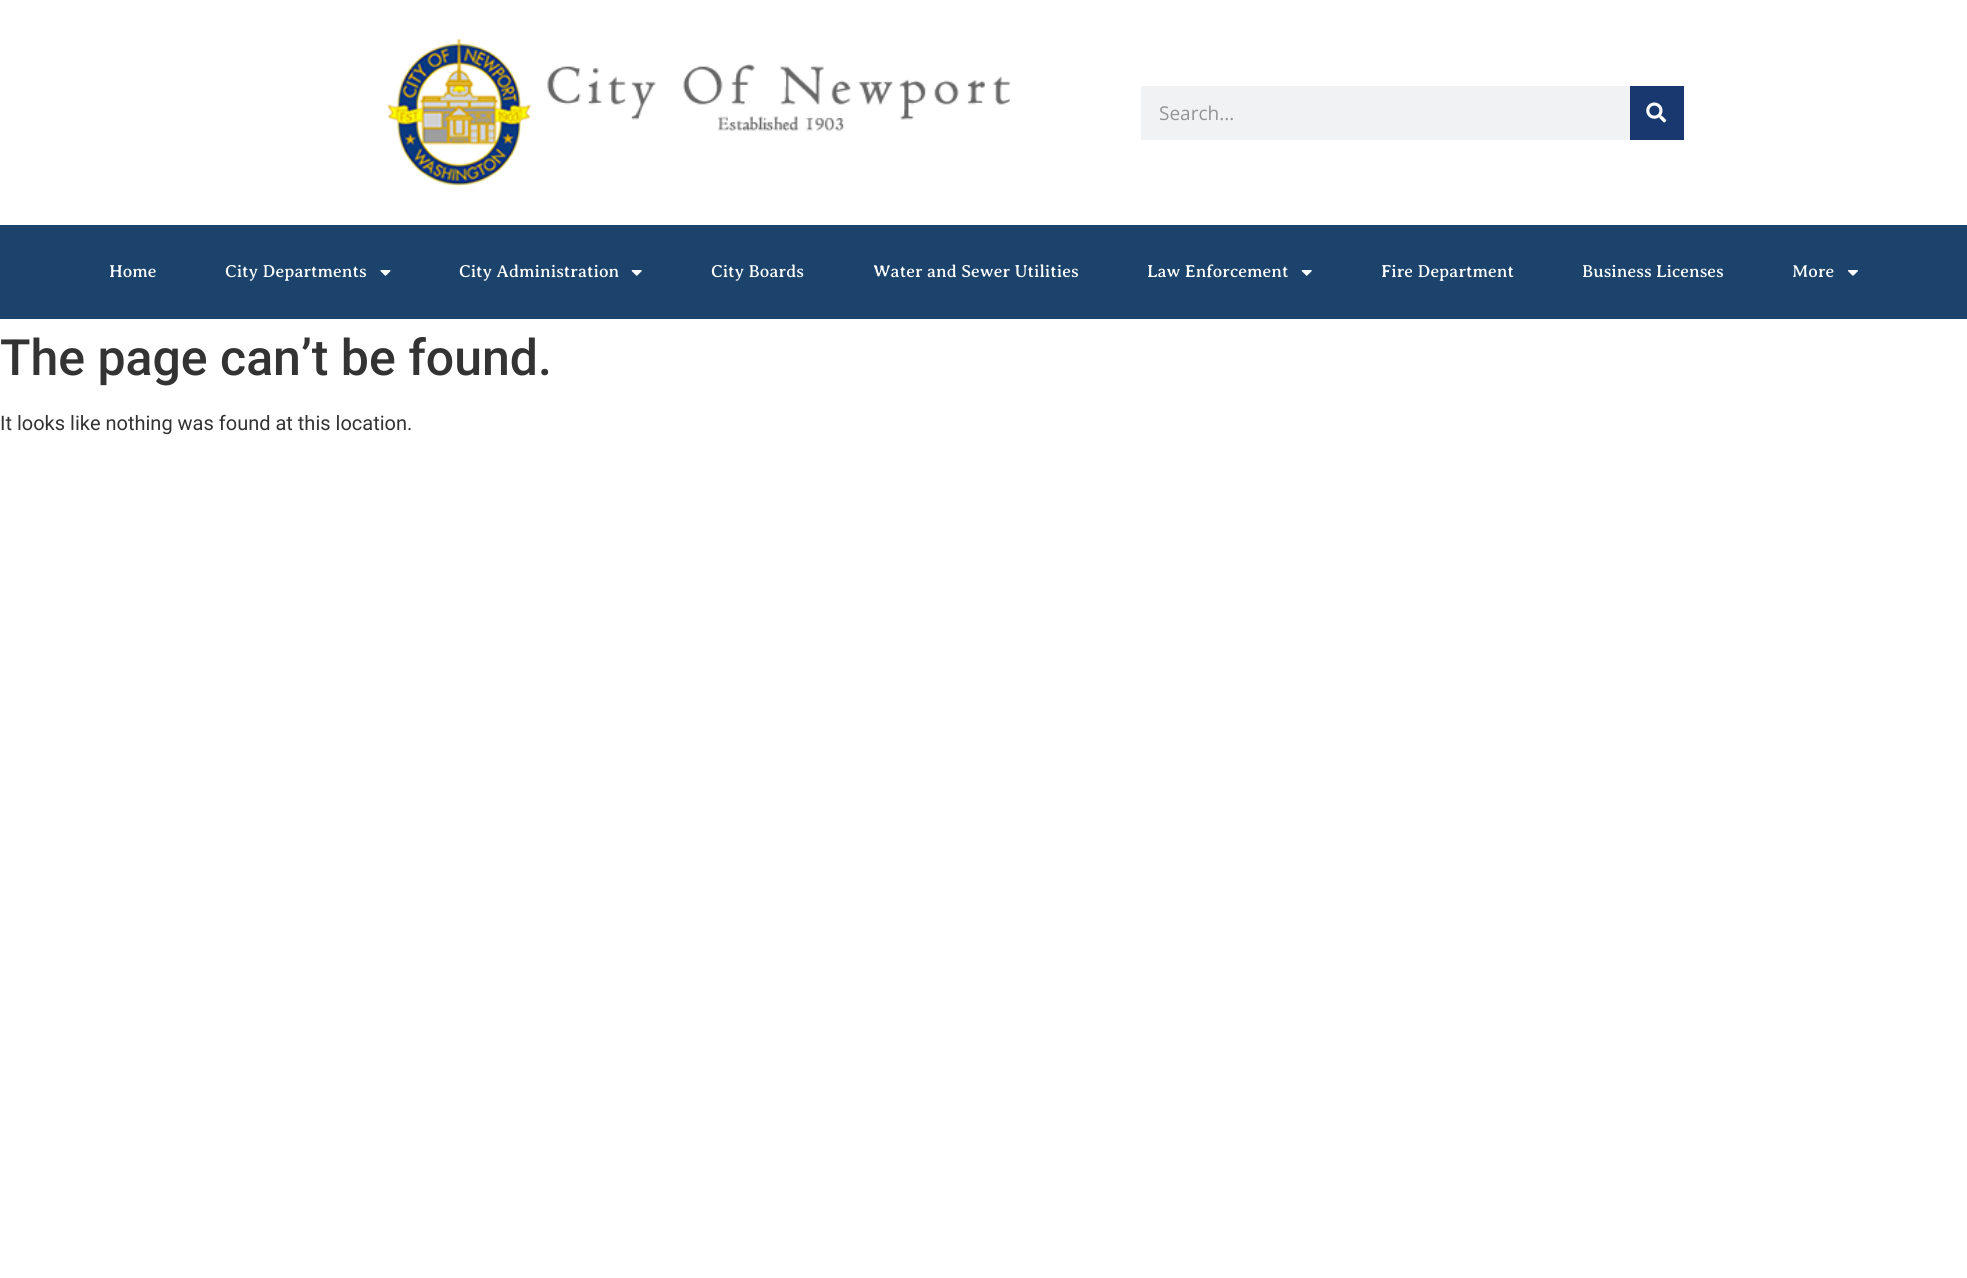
#include <cairo/cairo.h>
#include <math.h>
#include <stddef.h>


static void draw_image(cairo_t *cr, const char *path, double x, double y, double w, double h) {
  cairo_surface_t *image = cairo_image_surface_create_from_png(path);
  cairo_save(cr);
  cairo_set_source_surface(cr, image, x, y);
  cairo_rectangle(cr, x, y, w, h);
  cairo_fill(cr);
  cairo_restore(cr);
  cairo_surface_destroy(image);
}

static void draw(cairo_t *cr) {
  cairo_set_source_rgb(cr, 1, 1, 1);
  cairo_paint(cr);
  draw_image(cr, "images/1.png", 387, 38, 623, 149);
  cairo_set_source_rgb(cr, 241 / 255.0, 242 / 255.0, 243 / 255.0);
  cairo_rectangle(cr, 1141, 86, 489, 54);
  cairo_fill(cr);
  cairo_set_source_rgb(cr, 24 / 255.0, 56 / 255.0, 111 / 255.0);
  cairo_rectangle(cr, 1630, 86, 54, 54);
  cairo_fill(cr);
  draw_image(cr, "images/2.png", 1646, 102, 21, 21);
  cairo_set_source_rgb(cr, 27 / 255.0, 67 / 255.0, 107 / 255.0);
  cairo_rectangle(cr, 0, 225, 1967, 94);
  cairo_fill(cr);
  draw_image(cr, "images/3.png", 380, 270, 11, 6);
  draw_image(cr, "images/4.png", 631, 270, 11, 6);
  draw_image(cr, "images/4.png", 1301, 270, 11, 6);
  draw_image(cr, "images/5.png", 1847, 270, 11, 6);
  cairo_select_font_face(cr, "Open Sans", CAIRO_FONT_SLANT_NORMAL, CAIRO_FONT_WEIGHT_NORMAL);
  cairo_set_font_size(cr, 19);
  cairo_set_source_rgb(cr, 147 / 255.0, 147 / 255.0, 148 / 255.0);
  cairo_move_to(cr, 1159, 120);
  cairo_show_text(cr, "Search...");
  cairo_select_font_face(cr, "Averia Serif Libre", CAIRO_FONT_SLANT_NORMAL, CAIRO_FONT_WEIGHT_NORMAL);
  cairo_set_font_size(cr, 17.5);
  cairo_set_source_rgb(cr, 1, 1, 1);
  cairo_move_to(cr, 109, 277);
  cairo_show_text(cr, "Home");
  cairo_move_to(cr, 225, 277);
  cairo_show_text(cr, "City Departments");
  cairo_move_to(cr, 459, 277);
  cairo_show_text(cr, "City Administration");
  cairo_move_to(cr, 711, 277);
  cairo_show_text(cr, "City Boards");
  cairo_move_to(cr, 873, 277);
  cairo_show_text(cr, "Water and Sewer Utilities");
  cairo_move_to(cr, 1147, 277);
  cairo_show_text(cr, "Law Enforcement");
  cairo_move_to(cr, 1381, 277);
  cairo_show_text(cr, "Fire Department");
  cairo_move_to(cr, 1582, 277);
  cairo_show_text(cr, "Business Licenses");
  cairo_move_to(cr, 1792, 277);
  cairo_show_text(cr, "More");
  cairo_select_font_face(cr, "Roboto Medium", CAIRO_FONT_SLANT_NORMAL, CAIRO_FONT_WEIGHT_NORMAL);
  cairo_set_font_size(cr, 50);
  cairo_set_source_rgb(cr, 51 / 255.0, 51 / 255.0, 51 / 255.0);
  cairo_move_to(cr, 0, 375);
  cairo_show_text(cr, "The page can’t be found.");
  cairo_select_font_face(cr, "Roboto", CAIRO_FONT_SLANT_NORMAL, CAIRO_FONT_WEIGHT_NORMAL);
  cairo_set_font_size(cr, 20);
  cairo_move_to(cr, 0, 430);
  cairo_show_text(cr, "It looks like nothing was found at this location.");
}

int main(void) {
  cairo_surface_t *surface = cairo_image_surface_create(CAIRO_FORMAT_RGB24, 1967, 1278);
  cairo_t *cr = cairo_create(surface);
  cairo_font_options_t *options = cairo_font_options_create();
  cairo_font_options_set_hint_metrics(options, CAIRO_HINT_METRICS_OFF);
  cairo_font_options_set_hint_style(options, CAIRO_HINT_STYLE_NONE);
  cairo_set_font_options(cr, options);
  cairo_set_miter_limit(cr, 4);
  draw(cr);
  cairo_surface_write_to_png(surface, "out.png");
  cairo_font_options_destroy(options);
  cairo_destroy(cr);
  cairo_surface_destroy(surface);
  return 0;
}
